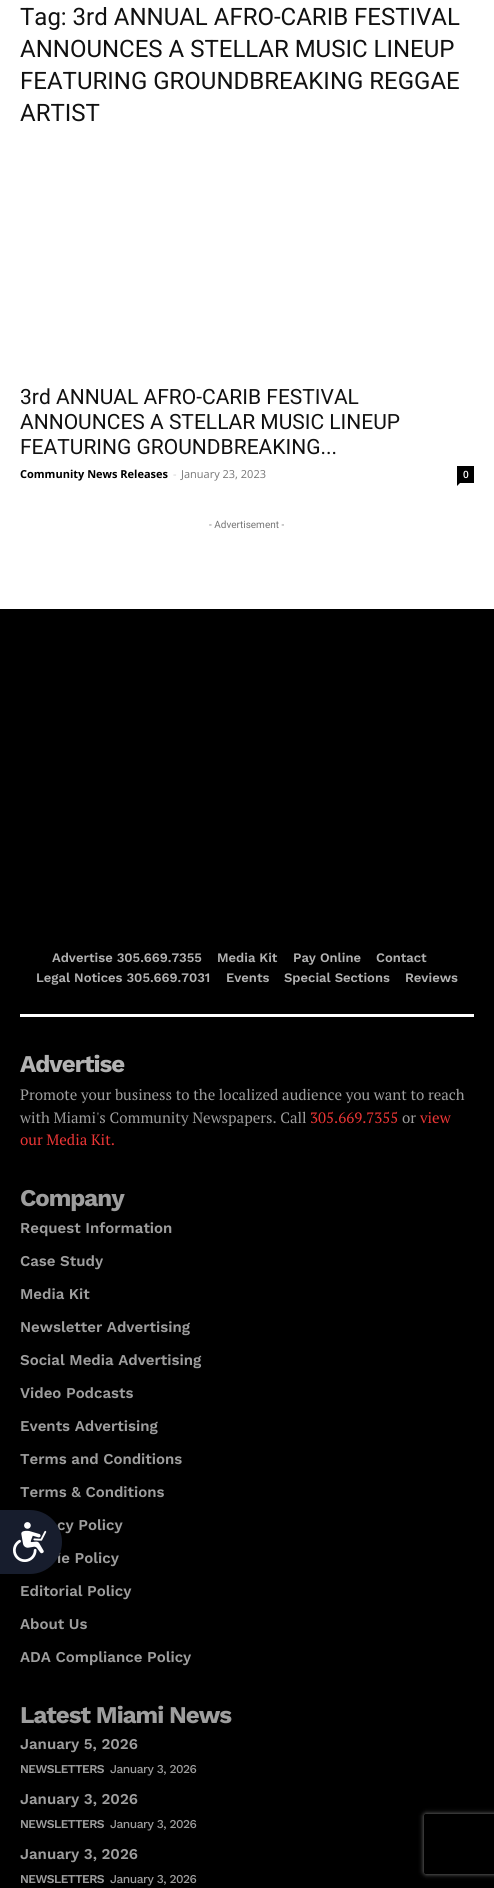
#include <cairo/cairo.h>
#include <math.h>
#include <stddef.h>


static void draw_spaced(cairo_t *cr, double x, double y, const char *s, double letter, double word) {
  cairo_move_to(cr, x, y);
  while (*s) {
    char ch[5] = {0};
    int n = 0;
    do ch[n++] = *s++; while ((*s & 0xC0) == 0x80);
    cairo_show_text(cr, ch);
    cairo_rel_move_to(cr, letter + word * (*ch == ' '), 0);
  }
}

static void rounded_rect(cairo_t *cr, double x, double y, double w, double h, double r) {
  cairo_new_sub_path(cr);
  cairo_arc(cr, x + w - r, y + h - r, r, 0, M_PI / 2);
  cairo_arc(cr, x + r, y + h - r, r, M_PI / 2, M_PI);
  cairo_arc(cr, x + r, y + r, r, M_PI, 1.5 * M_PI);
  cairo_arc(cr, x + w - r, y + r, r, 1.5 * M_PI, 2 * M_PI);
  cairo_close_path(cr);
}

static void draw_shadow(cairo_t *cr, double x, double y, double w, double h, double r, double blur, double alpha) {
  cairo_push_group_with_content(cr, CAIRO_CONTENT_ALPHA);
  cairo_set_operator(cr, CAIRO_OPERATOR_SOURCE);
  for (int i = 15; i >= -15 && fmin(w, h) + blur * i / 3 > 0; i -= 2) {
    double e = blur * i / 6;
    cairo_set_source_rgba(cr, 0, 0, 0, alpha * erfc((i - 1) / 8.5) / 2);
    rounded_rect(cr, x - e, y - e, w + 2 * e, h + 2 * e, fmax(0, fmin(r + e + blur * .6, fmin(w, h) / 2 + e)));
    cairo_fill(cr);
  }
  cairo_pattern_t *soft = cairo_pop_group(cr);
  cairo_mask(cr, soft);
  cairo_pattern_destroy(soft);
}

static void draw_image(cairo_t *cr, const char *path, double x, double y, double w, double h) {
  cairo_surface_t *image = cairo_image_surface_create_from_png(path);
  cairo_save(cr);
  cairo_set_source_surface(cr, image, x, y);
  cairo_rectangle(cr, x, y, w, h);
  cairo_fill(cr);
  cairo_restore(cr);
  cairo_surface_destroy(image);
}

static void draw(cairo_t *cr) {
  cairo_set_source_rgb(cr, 1, 1, 1);
  cairo_paint(cr);
  cairo_set_source_rgb(cr, 0, 0, 0);
  cairo_rectangle(cr, 457, 466, 17, 17);
  cairo_fill(cr);
  cairo_new_path(cr);
  cairo_move_to(cr, 457, 483);
  cairo_line_to(cr, 460, 483);
  cairo_line_to(cr, 457, 486);
  cairo_close_path(cr);
  cairo_fill(cr);
  cairo_rectangle(cr, 0, 609, 494, 1279);
  cairo_fill(cr);
  cairo_set_source_rgb(cr, 1, 1, 1);
  cairo_rectangle(cr, 20, 1014, 454, 3);
  cairo_fill(cr);
  cairo_save(cr);
  cairo_set_fill_rule(cr, CAIRO_FILL_RULE_EVEN_ODD);
  cairo_new_path(cr);
  cairo_move_to(cr, 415, 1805);
  cairo_line_to(cr, 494, 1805);
  cairo_line_to(cr, 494, 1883);
  cairo_line_to(cr, 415, 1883);
  cairo_close_path(cr);
  cairo_move_to(cr, 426, 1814);
  cairo_line_to(cr, 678, 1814);
  cairo_curve_to(cr, 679, 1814, 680, 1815, 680, 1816);
  cairo_line_to(cr, 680, 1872);
  cairo_curve_to(cr, 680, 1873, 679, 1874, 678, 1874);
  cairo_line_to(cr, 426, 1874);
  cairo_curve_to(cr, 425, 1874, 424, 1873, 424, 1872);
  cairo_line_to(cr, 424, 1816);
  cairo_curve_to(cr, 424, 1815, 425, 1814, 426, 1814);
  cairo_close_path(cr);
  cairo_clip(cr);
  cairo_set_source_rgb(cr, 128 / 255.0, 128 / 255.0, 128 / 255.0);
  draw_shadow(cr, 424, 1814, 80, 60, 2, 2.5, 1);
  cairo_restore(cr);
  cairo_select_font_face(cr, "Roboto", CAIRO_FONT_SLANT_NORMAL, CAIRO_FONT_WEIGHT_NORMAL);
  cairo_set_font_size(cr, 24);
  cairo_set_source_rgb(cr, 17 / 255.0, 17 / 255.0, 17 / 255.0);
  cairo_move_to(cr, 20, 25);
  cairo_show_text(cr, "Tag: 3rd ANNUAL AFRO-CARIB FESTIVAL");
  cairo_move_to(cr, 20, 57);
  cairo_show_text(cr, "ANNOUNCES A STELLAR MUSIC LINEUP");
  cairo_move_to(cr, 20, 89);
  cairo_show_text(cr, "FEATURING GROUNDBREAKING REGGAE");
  cairo_move_to(cr, 20, 121);
  cairo_show_text(cr, "ARTIST");
  cairo_set_font_size(cr, 21);
  cairo_move_to(cr, 20, 404);
  cairo_show_text(cr, "3rd ANNUAL AFRO-CARIB FESTIVAL");
  cairo_move_to(cr, 20, 429);
  cairo_show_text(cr, "ANNOUNCES A STELLAR MUSIC LINEUP");
  cairo_move_to(cr, 20, 454);
  cairo_show_text(cr, "FEATURING GROUNDBREAKING...");
  cairo_select_font_face(cr, "Open Sans", CAIRO_FONT_SLANT_NORMAL, CAIRO_FONT_WEIGHT_BOLD);
  cairo_set_font_size(cr, 11);
  cairo_set_source_rgb(cr, 0, 0, 0);
  cairo_move_to(cr, 20, 478);
  cairo_show_text(cr, "Community News Releases");
  cairo_select_font_face(cr, "Open Sans", CAIRO_FONT_SLANT_NORMAL, CAIRO_FONT_WEIGHT_NORMAL);
  cairo_set_source_rgb(cr, 204 / 255.0, 204 / 255.0, 204 / 255.0);
  cairo_move_to(cr, 173, 478);
  cairo_show_text(cr, "-");
  cairo_set_source_rgb(cr, 118 / 255.0, 118 / 255.0, 118 / 255.0);
  cairo_move_to(cr, 181, 478);
  cairo_show_text(cr, "January 23, 2023");
  cairo_select_font_face(cr, "Open Sans SemiBold", CAIRO_FONT_SLANT_NORMAL, CAIRO_FONT_WEIGHT_NORMAL);
  cairo_set_font_size(cr, 10);
  cairo_set_source_rgb(cr, 1, 1, 1);
  cairo_move_to(cr, 463, 478);
  cairo_show_text(cr, "0");
  cairo_select_font_face(cr, "Roboto", CAIRO_FONT_SLANT_NORMAL, CAIRO_FONT_WEIGHT_NORMAL);
  cairo_set_source_rgb(cr, 118 / 255.0, 118 / 255.0, 118 / 255.0);
  cairo_move_to(cr, 209, 528);
  cairo_show_text(cr, "- Advertisement -");
  cairo_select_font_face(cr, "Work Sans SemiBold", CAIRO_FONT_SLANT_NORMAL, CAIRO_FONT_WEIGHT_NORMAL);
  cairo_set_font_size(cr, 13);
  cairo_set_source_rgb(cr, 178 / 255.0, 178 / 255.0, 178 / 255.0);
  cairo_move_to(cr, 52, 962);
  cairo_show_text(cr, "Advertise 305.669.7355");
  cairo_move_to(cr, 217, 962);
  cairo_show_text(cr, "Media Kit");
  cairo_move_to(cr, 293, 962);
  cairo_show_text(cr, "Pay Online");
  cairo_move_to(cr, 376, 962);
  cairo_show_text(cr, "Contact");
  cairo_move_to(cr, 36, 982);
  cairo_show_text(cr, "Legal Notices 305.669.7031");
  cairo_move_to(cr, 226, 982);
  cairo_show_text(cr, "Events");
  cairo_move_to(cr, 284, 982);
  cairo_show_text(cr, "Special Sections");
  cairo_move_to(cr, 405, 982);
  cairo_show_text(cr, "Reviews");
  cairo_select_font_face(cr, "Work Sans", CAIRO_FONT_SLANT_NORMAL, CAIRO_FONT_WEIGHT_BOLD);
  cairo_set_font_size(cr, 24);
  draw_spaced(cr, 20, 1072, "Advertise", -1, 0);
  cairo_select_font_face(cr, "PT Serif", CAIRO_FONT_SLANT_NORMAL, CAIRO_FONT_WEIGHT_NORMAL);
  cairo_set_font_size(cr, 15);
  cairo_set_source_rgb(cr, 158 / 255.0, 158 / 255.0, 158 / 255.0);
  cairo_move_to(cr, 20, 1100);
  cairo_show_text(cr, "Promote your business to the localized audience you want to reach");
  cairo_move_to(cr, 20, 1123);
  cairo_show_text(cr, "with Miami's Community Newspapers. Call");
  cairo_set_source_rgb(cr, 236 / 255.0, 53 / 255.0, 53 / 255.0);
  cairo_move_to(cr, 310, 1123);
  cairo_show_text(cr, "305.669.7355");
  cairo_set_source_rgb(cr, 158 / 255.0, 158 / 255.0, 158 / 255.0);
  cairo_move_to(cr, 402, 1123);
  cairo_show_text(cr, "or");
  cairo_set_source_rgb(cr, 236 / 255.0, 53 / 255.0, 53 / 255.0);
  cairo_move_to(cr, 420, 1123);
  cairo_show_text(cr, "view");
  cairo_move_to(cr, 20, 1145);
  cairo_show_text(cr, "our Media Kit.");
  cairo_select_font_face(cr, "Work Sans", CAIRO_FONT_SLANT_NORMAL, CAIRO_FONT_WEIGHT_BOLD);
  cairo_set_font_size(cr, 24);
  cairo_set_source_rgb(cr, 158 / 255.0, 158 / 255.0, 158 / 255.0);
  draw_spaced(cr, 20, 1206, "Company", -1, 0);
  cairo_select_font_face(cr, "Work Sans SemiBold", CAIRO_FONT_SLANT_NORMAL, CAIRO_FONT_WEIGHT_NORMAL);
  cairo_set_font_size(cr, 15);
  cairo_move_to(cr, 20, 1233);
  cairo_show_text(cr, "Request Information");
  cairo_move_to(cr, 20, 1266);
  cairo_show_text(cr, "Case Study");
  cairo_move_to(cr, 20, 1299);
  cairo_show_text(cr, "Media Kit");
  cairo_move_to(cr, 20, 1332);
  cairo_show_text(cr, "Newsletter Advertising");
  cairo_move_to(cr, 20, 1365);
  cairo_show_text(cr, "Social Media Advertising");
  cairo_move_to(cr, 20, 1398);
  cairo_show_text(cr, "Video Podcasts");
  cairo_move_to(cr, 20, 1431);
  cairo_show_text(cr, "Events Advertising");
  cairo_move_to(cr, 20, 1464);
  cairo_show_text(cr, "Terms and Conditions");
  cairo_move_to(cr, 20, 1497);
  cairo_show_text(cr, "Terms & Conditions");
  cairo_move_to(cr, 57, 1530);
  cairo_show_text(cr, "cy Policy");
  cairo_move_to(cr, 57, 1563);
  cairo_show_text(cr, "ie Policy");
  cairo_move_to(cr, 20, 1596);
  cairo_show_text(cr, "Editorial Policy");
  cairo_move_to(cr, 20, 1629);
  cairo_show_text(cr, "About Us");
  cairo_move_to(cr, 20, 1662);
  cairo_show_text(cr, "ADA Compliance Policy");
  cairo_select_font_face(cr, "Work Sans", CAIRO_FONT_SLANT_NORMAL, CAIRO_FONT_WEIGHT_BOLD);
  cairo_set_font_size(cr, 24);
  draw_spaced(cr, 20, 1723, "Latest Miami News", -1, 0);
  cairo_select_font_face(cr, "Work Sans SemiBold", CAIRO_FONT_SLANT_NORMAL, CAIRO_FONT_WEIGHT_NORMAL);
  cairo_set_font_size(cr, 15);
  cairo_move_to(cr, 20, 1749);
  cairo_show_text(cr, "January 5, 2026");
  cairo_set_font_size(cr, 12);
  draw_spaced(cr, 20, 1773, "NEWSLETTERS", -0.5, 0);
  cairo_select_font_face(cr, "Work Sans Medium", CAIRO_FONT_SLANT_NORMAL, CAIRO_FONT_WEIGHT_NORMAL);
  draw_spaced(cr, 110, 1773, "January 3, 2026", -0.5, 0);
  cairo_select_font_face(cr, "Work Sans SemiBold", CAIRO_FONT_SLANT_NORMAL, CAIRO_FONT_WEIGHT_NORMAL);
  cairo_set_font_size(cr, 15);
  cairo_move_to(cr, 20, 1804);
  cairo_show_text(cr, "January 3, 2026");
  cairo_set_font_size(cr, 12);
  draw_spaced(cr, 20, 1828, "NEWSLETTERS", -0.5, 0);
  cairo_select_font_face(cr, "Work Sans Medium", CAIRO_FONT_SLANT_NORMAL, CAIRO_FONT_WEIGHT_NORMAL);
  draw_spaced(cr, 110, 1828, "January 3, 2026", -0.5, 0);
  cairo_select_font_face(cr, "Work Sans SemiBold", CAIRO_FONT_SLANT_NORMAL, CAIRO_FONT_WEIGHT_NORMAL);
  cairo_set_font_size(cr, 15);
  cairo_move_to(cr, 20, 1859);
  cairo_show_text(cr, "January 3, 2026");
  cairo_set_font_size(cr, 12);
  draw_spaced(cr, 20, 1883, "NEWSLETTERS", -0.5, 0);
  cairo_select_font_face(cr, "Work Sans Medium", CAIRO_FONT_SLANT_NORMAL, CAIRO_FONT_WEIGHT_NORMAL);
  draw_spaced(cr, 110, 1883, "January 3, 2026", -0.5, 0);
  cairo_set_source_rgb(cr, 23 / 255.0, 29 / 255.0, 45 / 255.0);
  cairo_new_path(cr);
  cairo_move_to(cr, 0, 1510);
  cairo_line_to(cr, 30, 1510);
  cairo_curve_to(cr, 47.5, 1510, 62, 1524.5, 62, 1542);
  cairo_curve_to(cr, 62, 1559.5, 47.5, 1574, 30, 1574);
  cairo_line_to(cr, 0, 1574);
  cairo_close_path(cr);
  cairo_fill(cr);
  draw_image(cr, "images/1.png", 13, 1522, 34, 40);
}

int main(void) {
  cairo_surface_t *surface = cairo_image_surface_create(CAIRO_FORMAT_RGB24, 494, 1888);
  cairo_t *cr = cairo_create(surface);
  cairo_font_options_t *options = cairo_font_options_create();
  cairo_font_options_set_hint_metrics(options, CAIRO_HINT_METRICS_OFF);
  cairo_font_options_set_hint_style(options, CAIRO_HINT_STYLE_NONE);
  cairo_set_font_options(cr, options);
  cairo_set_miter_limit(cr, 4);
  draw(cr);
  cairo_surface_write_to_png(surface, "out.png");
  cairo_font_options_destroy(options);
  cairo_destroy(cr);
  cairo_surface_destroy(surface);
  return 0;
}
